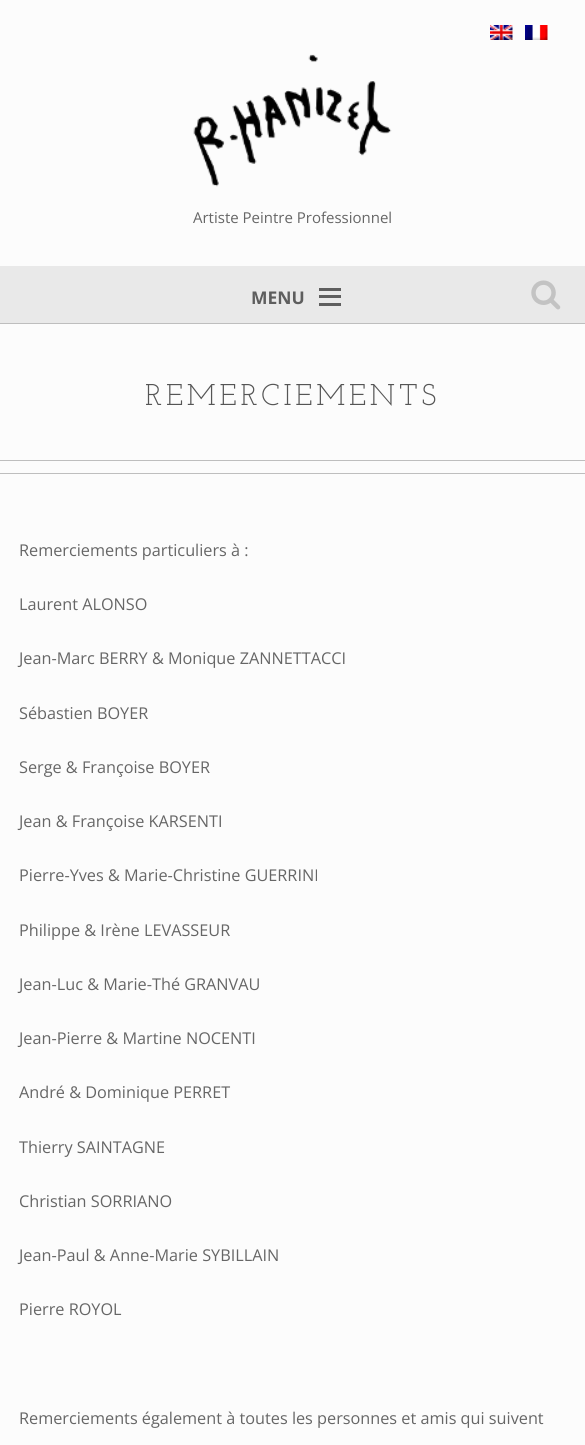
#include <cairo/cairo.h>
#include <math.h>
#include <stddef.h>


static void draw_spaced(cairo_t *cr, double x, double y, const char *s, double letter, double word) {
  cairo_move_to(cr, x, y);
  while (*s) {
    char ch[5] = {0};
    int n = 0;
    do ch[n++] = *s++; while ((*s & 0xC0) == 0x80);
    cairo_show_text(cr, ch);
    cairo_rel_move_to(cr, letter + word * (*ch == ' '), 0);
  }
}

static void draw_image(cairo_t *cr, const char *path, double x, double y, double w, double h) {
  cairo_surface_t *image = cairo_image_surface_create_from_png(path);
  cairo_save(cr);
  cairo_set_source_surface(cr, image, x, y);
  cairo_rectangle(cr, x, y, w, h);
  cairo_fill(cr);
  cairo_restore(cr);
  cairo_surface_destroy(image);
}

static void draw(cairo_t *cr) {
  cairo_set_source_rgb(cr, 252 / 255.0, 252 / 255.0, 252 / 255.0);
  cairo_paint(cr);
  draw_image(cr, "images/1.png", 490, 25, 23, 15);
  draw_image(cr, "images/2.png", 525, 25, 23, 15);
  draw_image(cr, "images/3.png", 193, 54, 199, 133);
  cairo_set_source_rgb(cr, 233 / 255.0, 233 / 255.0, 233 / 255.0);
  cairo_rectangle(cr, 0, 266, 585, 57);
  cairo_fill(cr);
  cairo_set_source_rgb(cr, 94 / 255.0, 94 / 255.0, 94 / 255.0);
  cairo_rectangle(cr, 319, 303, 22, 3);
  cairo_fill(cr);
  cairo_rectangle(cr, 319, 295, 22, 3);
  cairo_fill(cr);
  cairo_rectangle(cr, 319, 288, 22, 3);
  cairo_fill(cr);
  draw_image(cr, "images/4.png", 531, 280, 30, 30);
  cairo_set_source_rgb(cr, 190 / 255.0, 190 / 255.0, 190 / 255.0);
  cairo_rectangle(cr, 0, 323, 585, 1);
  cairo_fill(cr);
  cairo_rectangle(cr, 0, 460, 585, 1);
  cairo_fill(cr);
  cairo_rectangle(cr, 0, 473, 585, 1);
  cairo_fill(cr);
  cairo_select_font_face(cr, "Open Sans", CAIRO_FONT_SLANT_NORMAL, CAIRO_FONT_WEIGHT_NORMAL);
  cairo_set_font_size(cr, 15);
  cairo_set_source_rgb(cr, 102 / 255.0, 102 / 255.0, 102 / 255.0);
  cairo_move_to(cr, 193, 223);
  cairo_show_text(cr, "Artiste Peintre Professionnel");
  cairo_select_font_face(cr, "Open Sans", CAIRO_FONT_SLANT_NORMAL, CAIRO_FONT_WEIGHT_BOLD);
  cairo_set_font_size(cr, 17.5);
  cairo_set_source_rgb(cr, 94 / 255.0, 94 / 255.0, 94 / 255.0);
  cairo_move_to(cr, 251, 304);
  cairo_show_text(cr, "MENU");
  cairo_select_font_face(cr, "Josefin Slab", CAIRO_FONT_SLANT_NORMAL, CAIRO_FONT_WEIGHT_NORMAL);
  cairo_set_font_size(cr, 30);
  cairo_set_source_rgb(cr, 85 / 255.0, 85 / 255.0, 85 / 255.0);
  draw_spaced(cr, 145, 405, "REMERCIEMENTS", 3.75, 0);
  cairo_select_font_face(cr, "Open Sans", CAIRO_FONT_SLANT_NORMAL, CAIRO_FONT_WEIGHT_NORMAL);
  cairo_set_font_size(cr, 16.25);
  cairo_set_source_rgb(cr, 102 / 255.0, 102 / 255.0, 102 / 255.0);
  cairo_move_to(cr, 19, 556);
  cairo_show_text(cr, "Remerciements particuliers à :");
  cairo_move_to(cr, 19, 610);
  cairo_show_text(cr, "Laurent ALONSO");
  cairo_move_to(cr, 19, 664);
  cairo_show_text(cr, "Jean-Marc BERRY & Monique ZANNETTACCI");
  cairo_move_to(cr, 19, 719);
  cairo_show_text(cr, "Sébastien BOYER");
  cairo_move_to(cr, 19, 773);
  cairo_show_text(cr, "Serge & Françoise BOYER");
  cairo_move_to(cr, 19, 827);
  cairo_show_text(cr, "Jean & Françoise KARSENTI");
  cairo_move_to(cr, 19, 881);
  cairo_show_text(cr, "Pierre-Yves & Marie-Christine GUERRINI");
  cairo_move_to(cr, 19, 936);
  cairo_show_text(cr, "Philippe & Irène LEVASSEUR");
  cairo_move_to(cr, 19, 990);
  cairo_show_text(cr, "Jean-Luc & Marie-Thé GRANVAU");
  cairo_move_to(cr, 19, 1044);
  cairo_show_text(cr, "Jean-Pierre & Martine NOCENTI");
  cairo_move_to(cr, 19, 1098);
  cairo_show_text(cr, "André & Dominique PERRET");
  cairo_move_to(cr, 19, 1153);
  cairo_show_text(cr, "Thierry SAINTAGNE");
  cairo_move_to(cr, 19, 1207);
  cairo_show_text(cr, "Christian SORRIANO");
  cairo_move_to(cr, 19, 1261);
  cairo_show_text(cr, "Jean-Paul & Anne-Marie SYBILLAIN");
  cairo_move_to(cr, 19, 1315);
  cairo_show_text(cr, "Pierre ROYOL");
  cairo_move_to(cr, 19, 1424);
  cairo_show_text(cr, "Remerciements également à toutes les personnes et amis qui suivent");
}

int main(void) {
  cairo_surface_t *surface = cairo_image_surface_create(CAIRO_FORMAT_RGB24, 585, 1445);
  cairo_t *cr = cairo_create(surface);
  cairo_font_options_t *options = cairo_font_options_create();
  cairo_font_options_set_hint_metrics(options, CAIRO_HINT_METRICS_OFF);
  cairo_font_options_set_hint_style(options, CAIRO_HINT_STYLE_NONE);
  cairo_set_font_options(cr, options);
  cairo_set_miter_limit(cr, 4);
  draw(cr);
  cairo_surface_write_to_png(surface, "out.png");
  cairo_font_options_destroy(options);
  cairo_destroy(cr);
  cairo_surface_destroy(surface);
  return 0;
}
